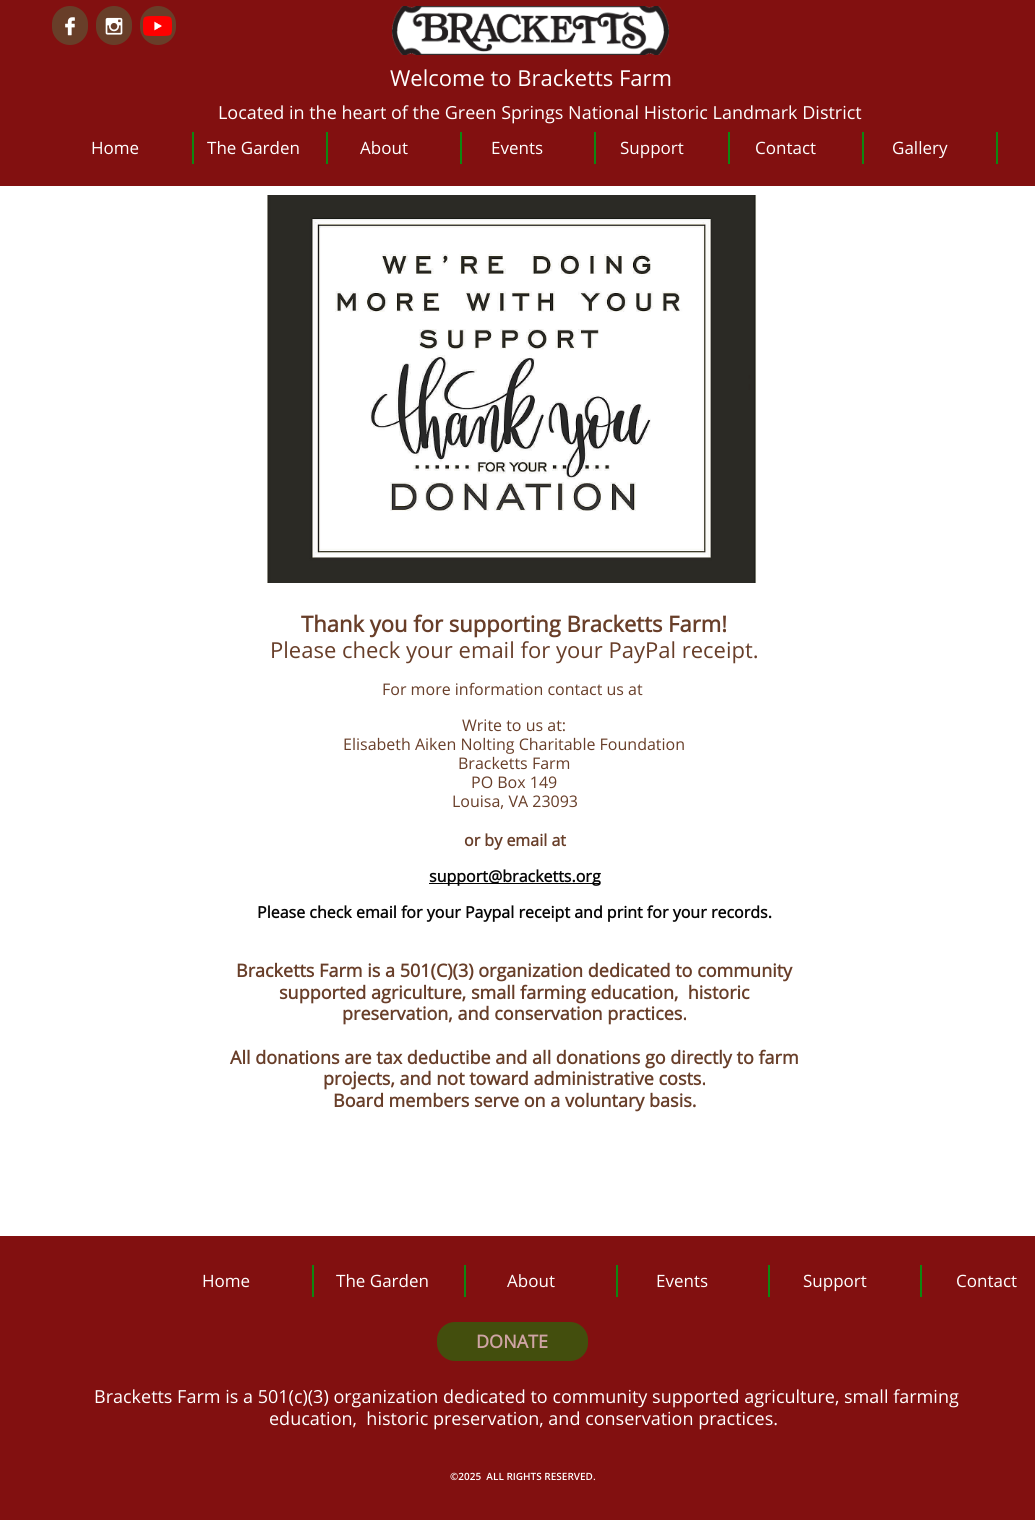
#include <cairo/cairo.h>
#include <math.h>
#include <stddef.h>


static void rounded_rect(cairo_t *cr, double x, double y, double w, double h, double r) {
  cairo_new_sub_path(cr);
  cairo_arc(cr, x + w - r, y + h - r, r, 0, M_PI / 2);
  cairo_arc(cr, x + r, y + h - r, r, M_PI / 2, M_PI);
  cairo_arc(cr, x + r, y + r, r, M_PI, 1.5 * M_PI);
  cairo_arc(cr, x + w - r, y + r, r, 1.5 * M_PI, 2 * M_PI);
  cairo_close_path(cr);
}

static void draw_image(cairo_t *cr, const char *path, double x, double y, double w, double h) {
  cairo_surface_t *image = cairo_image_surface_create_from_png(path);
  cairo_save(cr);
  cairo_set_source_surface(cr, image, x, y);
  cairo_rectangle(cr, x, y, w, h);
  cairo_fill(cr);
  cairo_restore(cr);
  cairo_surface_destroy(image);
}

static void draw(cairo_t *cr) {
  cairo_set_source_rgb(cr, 1, 1, 1);
  cairo_paint(cr);
  cairo_set_source_rgb(cr, 130 / 255.0, 16 / 255.0, 16 / 255.0);
  cairo_rectangle(cr, 0, 0, 1035, 186);
  cairo_fill(cr);
  cairo_set_source_rgb(cr, 104 / 255.0, 62 / 255.0, 41 / 255.0);
  rounded_rect(cr, 52, 6, 36, 39, 18);
  cairo_fill(cr);
  draw_image(cr, "images/1.png", 65, 17, 10, 19);
  rounded_rect(cr, 96, 6, 36, 39, 18);
  cairo_fill(cr);
  draw_image(cr, "images/2.png", 105, 17, 18, 18);
  rounded_rect(cr, 140, 6, 36, 39, 18);
  cairo_fill(cr);
  draw_image(cr, "images/3.png", 143, 16, 29, 20);
  draw_image(cr, "images/4.png", 392, 6, 277, 49);
  cairo_set_source_rgb(cr, 14 / 255.0, 135 / 255.0, 17 / 255.0);
  cairo_rectangle(cr, 192, 132, 2, 32);
  cairo_fill(cr);
  cairo_rectangle(cr, 326, 132, 2, 32);
  cairo_fill(cr);
  cairo_rectangle(cr, 460, 132, 2, 32);
  cairo_fill(cr);
  cairo_rectangle(cr, 594, 132, 2, 32);
  cairo_fill(cr);
  cairo_rectangle(cr, 728, 132, 2, 32);
  cairo_fill(cr);
  cairo_rectangle(cr, 862, 132, 2, 32);
  cairo_fill(cr);
  cairo_rectangle(cr, 996, 132, 2, 32);
  cairo_fill(cr);
  draw_image(cr, "images/5.png", 267, 195, 490, 388);
  cairo_set_source_rgb(cr, 5 / 255.0, 5 / 255.0, 5 / 255.0);
  cairo_rectangle(cr, 429, 883, 171, 1);
  cairo_fill(cr);
  cairo_set_source_rgb(cr, 130 / 255.0, 16 / 255.0, 16 / 255.0);
  cairo_rectangle(cr, 0, 1236, 1035, 284);
  cairo_fill(cr);
  cairo_set_source_rgb(cr, 14 / 255.0, 135 / 255.0, 17 / 255.0);
  cairo_rectangle(cr, 312, 1265, 2, 32);
  cairo_fill(cr);
  cairo_rectangle(cr, 464, 1265, 2, 32);
  cairo_fill(cr);
  cairo_rectangle(cr, 616, 1265, 2, 32);
  cairo_fill(cr);
  cairo_rectangle(cr, 768, 1265, 2, 32);
  cairo_fill(cr);
  cairo_rectangle(cr, 920, 1265, 2, 32);
  cairo_fill(cr);
  cairo_set_source_rgb(cr, 67 / 255.0, 78 / 255.0, 13 / 255.0);
  rounded_rect(cr, 437, 1322, 151, 39, 18);
  cairo_fill(cr);
  cairo_select_font_face(cr, "Open Sans", CAIRO_FONT_SLANT_NORMAL, CAIRO_FONT_WEIGHT_NORMAL);
  cairo_set_font_size(cr, 22);
  cairo_set_source_rgb(cr, 1, 1, 1);
  cairo_move_to(cr, 390, 86);
  cairo_show_text(cr, "Welcome to Bracketts Farm");
  cairo_set_font_size(cr, 18);
  cairo_move_to(cr, 218, 119);
  cairo_show_text(cr, "Located in the heart of the Green Springs National Historic Landmark District");
  cairo_set_font_size(cr, 17);
  cairo_move_to(cr, 91, 154);
  cairo_show_text(cr, "Home");
  cairo_move_to(cr, 207, 154);
  cairo_show_text(cr, "The Garden");
  cairo_move_to(cr, 360, 154);
  cairo_show_text(cr, "About");
  cairo_move_to(cr, 491, 154);
  cairo_show_text(cr, "Events");
  cairo_move_to(cr, 620, 154);
  cairo_show_text(cr, "Support");
  cairo_move_to(cr, 755, 154);
  cairo_show_text(cr, "Contact");
  cairo_move_to(cr, 892, 154);
  cairo_show_text(cr, "Gallery");
  cairo_select_font_face(cr, "Open Sans", CAIRO_FONT_SLANT_NORMAL, CAIRO_FONT_WEIGHT_BOLD);
  cairo_set_font_size(cr, 22);
  cairo_set_source_rgb(cr, 104 / 255.0, 62 / 255.0, 41 / 255.0);
  cairo_move_to(cr, 301, 632);
  cairo_show_text(cr, "Thank you for supporting Bracketts Farm!");
  cairo_select_font_face(cr, "Open Sans", CAIRO_FONT_SLANT_NORMAL, CAIRO_FONT_WEIGHT_NORMAL);
  cairo_move_to(cr, 270, 658);
  cairo_show_text(cr, "Please check your email for your PayPal receipt.");
  cairo_set_font_size(cr, 16);
  cairo_move_to(cr, 382, 695);
  cairo_show_text(cr, "For more information contact us at");
  cairo_move_to(cr, 462, 731);
  cairo_show_text(cr, "Write to us at:");
  cairo_move_to(cr, 343, 750);
  cairo_show_text(cr, "Elisabeth Aiken Nolting Charitable Foundation");
  cairo_move_to(cr, 458, 769);
  cairo_show_text(cr, "Bracketts Farm");
  cairo_move_to(cr, 471, 788);
  cairo_show_text(cr, "PO Box 149");
  cairo_move_to(cr, 452, 807);
  cairo_show_text(cr, "Louisa, VA 23093");
  cairo_select_font_face(cr, "Open Sans", CAIRO_FONT_SLANT_NORMAL, CAIRO_FONT_WEIGHT_BOLD);
  cairo_move_to(cr, 464, 846);
  cairo_show_text(cr, "or by email at");
  cairo_set_source_rgb(cr, 5 / 255.0, 5 / 255.0, 5 / 255.0);
  cairo_move_to(cr, 429, 882);
  cairo_show_text(cr, "support@bracketts.org");
  cairo_move_to(cr, 257, 918);
  cairo_show_text(cr, "Please check email for your Paypal receipt and print for your records.");
  cairo_set_font_size(cr, 18);
  cairo_set_source_rgb(cr, 104 / 255.0, 62 / 255.0, 41 / 255.0);
  cairo_move_to(cr, 236, 977);
  cairo_show_text(cr, "Bracketts Farm is a 501(C)(3) organization dedicated to community");
  cairo_move_to(cr, 279, 999);
  cairo_show_text(cr, "supported agriculture, small farming education,  historic");
  cairo_move_to(cr, 342, 1020);
  cairo_show_text(cr, "preservation, and conservation practices.");
  cairo_move_to(cr, 230, 1064);
  cairo_show_text(cr, "All donations are tax deductibe and all donations go directly to farm");
  cairo_move_to(cr, 323, 1085);
  cairo_show_text(cr, "projects, and not toward administrative costs.");
  cairo_move_to(cr, 333, 1107);
  cairo_show_text(cr, "Board members serve on a voluntary basis.");
  cairo_select_font_face(cr, "Open Sans", CAIRO_FONT_SLANT_NORMAL, CAIRO_FONT_WEIGHT_NORMAL);
  cairo_set_font_size(cr, 17);
  cairo_set_source_rgb(cr, 1, 1, 1);
  cairo_move_to(cr, 202, 1287);
  cairo_show_text(cr, "Home");
  cairo_move_to(cr, 336, 1287);
  cairo_show_text(cr, "The Garden");
  cairo_move_to(cr, 507, 1287);
  cairo_show_text(cr, "About");
  cairo_move_to(cr, 656, 1287);
  cairo_show_text(cr, "Events");
  cairo_move_to(cr, 803, 1287);
  cairo_show_text(cr, "Support");
  cairo_move_to(cr, 956, 1287);
  cairo_show_text(cr, "Contact");
  cairo_select_font_face(cr, "Open Sans", CAIRO_FONT_SLANT_NORMAL, CAIRO_FONT_WEIGHT_BOLD);
  cairo_set_font_size(cr, 18);
  cairo_set_source_rgb(cr, 207 / 255.0, 164 / 255.0, 164 / 255.0);
  cairo_move_to(cr, 476, 1348);
  cairo_show_text(cr, "DONATE");
  cairo_select_font_face(cr, "Open Sans", CAIRO_FONT_SLANT_NORMAL, CAIRO_FONT_WEIGHT_NORMAL);
  cairo_set_source_rgb(cr, 1, 1, 1);
  cairo_move_to(cr, 94, 1403);
  cairo_show_text(cr, "Bracketts Farm is a 501(c)(3) organization dedicated to community supported agriculture, small farming");
  cairo_move_to(cr, 269, 1425);
  cairo_show_text(cr, "education,  historic preservation, and conservation practices.");
  cairo_select_font_face(cr, "Open Sans SemiBold", CAIRO_FONT_SLANT_NORMAL, CAIRO_FONT_WEIGHT_NORMAL);
  cairo_set_font_size(cr, 10);
  cairo_move_to(cr, 450, 1480);
  cairo_show_text(cr, "©2025  ALL RIGHTS RESERVED.");
}

int main(void) {
  cairo_surface_t *surface = cairo_image_surface_create(CAIRO_FORMAT_RGB24, 1035, 1520);
  cairo_t *cr = cairo_create(surface);
  cairo_font_options_t *options = cairo_font_options_create();
  cairo_font_options_set_hint_metrics(options, CAIRO_HINT_METRICS_OFF);
  cairo_font_options_set_hint_style(options, CAIRO_HINT_STYLE_NONE);
  cairo_set_font_options(cr, options);
  cairo_set_miter_limit(cr, 4);
  draw(cr);
  cairo_surface_write_to_png(surface, "out.png");
  cairo_font_options_destroy(options);
  cairo_destroy(cr);
  cairo_surface_destroy(surface);
  return 0;
}
